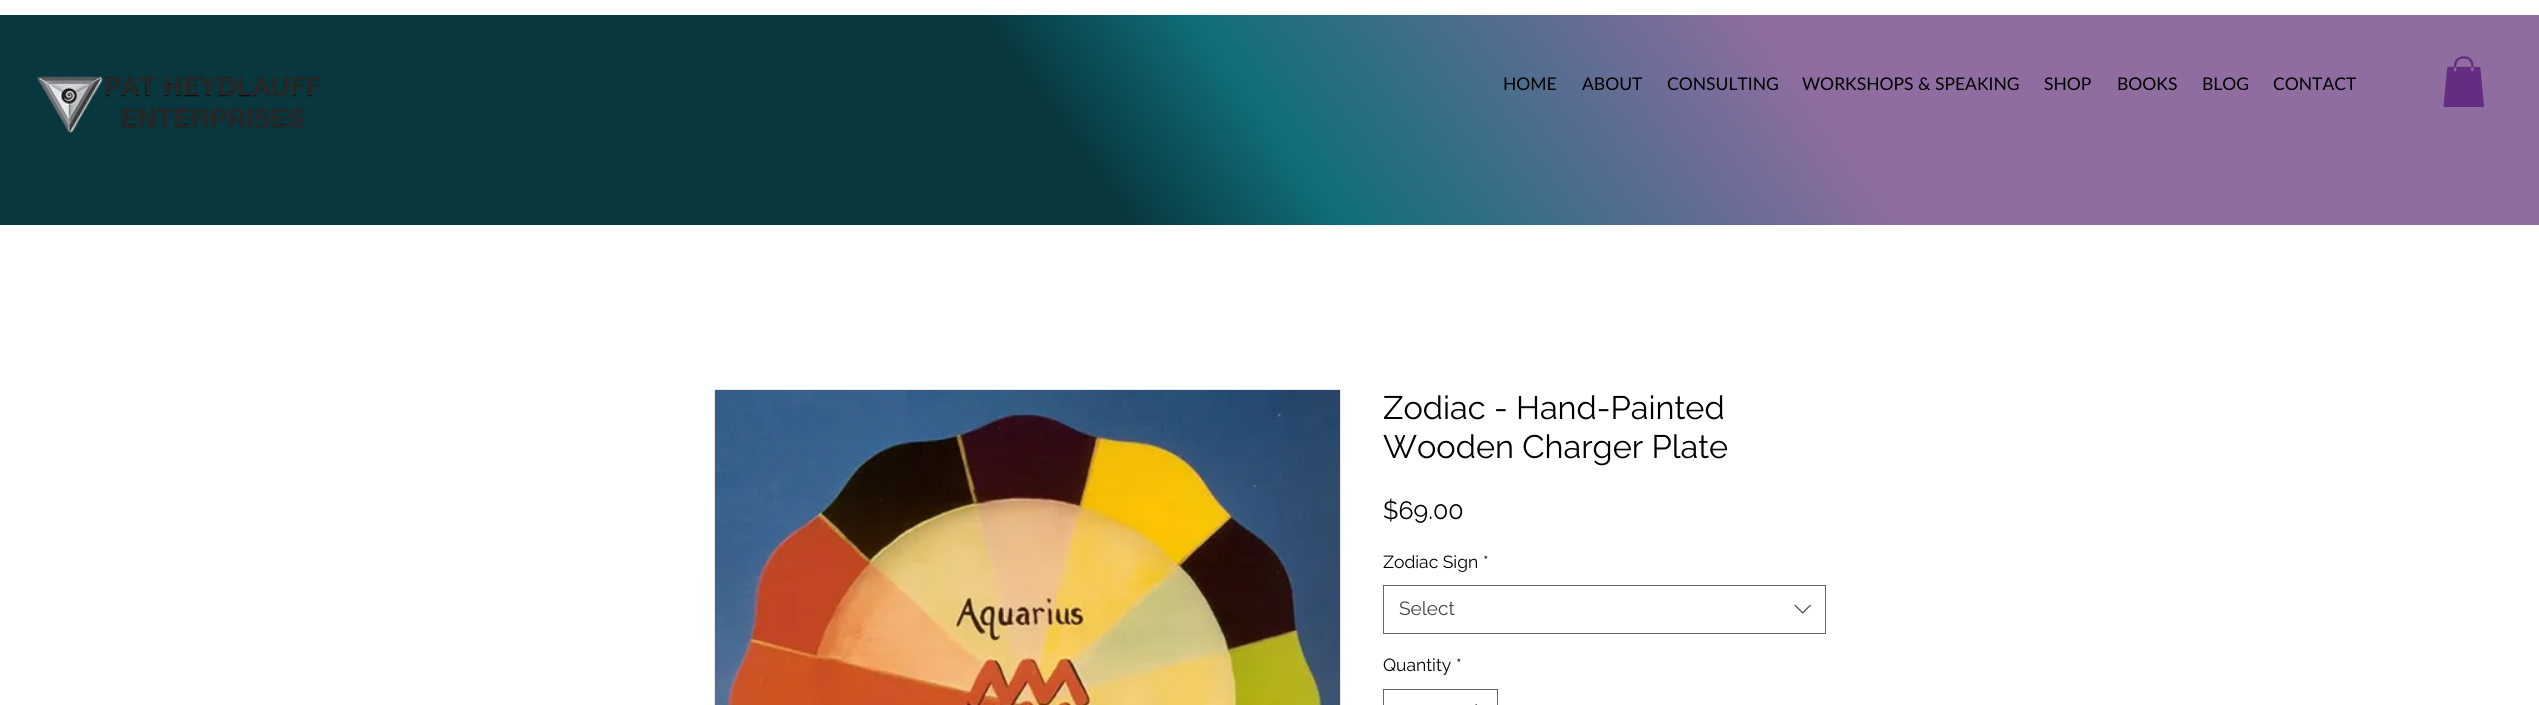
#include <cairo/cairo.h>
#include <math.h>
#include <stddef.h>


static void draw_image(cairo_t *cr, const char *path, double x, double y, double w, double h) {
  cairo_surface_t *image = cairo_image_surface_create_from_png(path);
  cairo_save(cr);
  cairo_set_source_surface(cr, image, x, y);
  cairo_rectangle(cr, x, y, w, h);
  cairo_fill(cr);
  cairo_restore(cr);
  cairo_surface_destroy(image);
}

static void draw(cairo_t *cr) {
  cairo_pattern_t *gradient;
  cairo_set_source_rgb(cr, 1, 1, 1);
  cairo_paint(cr);
  gradient = cairo_pattern_create_linear(389, 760, 2151, -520);
  cairo_pattern_add_color_stop_rgba(gradient, 0.42, 8 / 255.0, 55 / 255.0, 61 / 255.0, 1);
  cairo_pattern_add_color_stop_rgba(gradient, 0.5, 16 / 255.0, 110 / 255.0, 122 / 255.0, 1);
  cairo_pattern_add_color_stop_rgba(gradient, 0.71, 143 / 255.0, 109 / 255.0, 161 / 255.0, 1);
  cairo_set_source(cr, gradient);
  cairo_pattern_destroy(gradient);
  cairo_rectangle(cr, 0, 15, 2539, 210);
  cairo_fill(cr);
  draw_image(cr, "images/1.png", 36, 76, 286, 57);
  draw_image(cr, "images/2.png", 2443, 56, 41, 51);
  cairo_rectangle(cr, 714.5, 389.5, 626, 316);
  cairo_set_source_rgb(cr, 232 / 255.0, 230 / 255.0, 230 / 255.0);
  cairo_set_line_width(cr, 1);
  cairo_stroke(cr);
  draw_image(cr, "images/3.png", 715, 390, 625, 315);
  cairo_rectangle(cr, 1383.5, 585.5, 442, 48);
  cairo_set_source_rgb(cr, 102 / 255.0, 102 / 255.0, 102 / 255.0);
  cairo_stroke(cr);
  draw_image(cr, "images/4.png", 1794, 604, 17, 10);
  cairo_rectangle(cr, 1383.5, 689.5, 114, 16);
  cairo_stroke(cr);
  draw_image(cr, "images/5.png", 1475, 704, 2, 1);
  cairo_select_font_face(cr, "Lato", CAIRO_FONT_SLANT_NORMAL, CAIRO_FONT_WEIGHT_NORMAL);
  cairo_set_font_size(cr, 17.5);
  cairo_set_source_rgb(cr, 0, 0, 0);
  cairo_move_to(cr, 1503, 90);
  cairo_show_text(cr, "HOME");
  cairo_move_to(cr, 1582, 90);
  cairo_show_text(cr, "ABOUT");
  cairo_move_to(cr, 1667, 90);
  cairo_show_text(cr, "CONSULTING");
  cairo_move_to(cr, 1802, 90);
  cairo_show_text(cr, "WORKSHOPS & SPEAKING");
  cairo_move_to(cr, 2044, 90);
  cairo_show_text(cr, "SHOP");
  cairo_move_to(cr, 2117, 90);
  cairo_show_text(cr, "BOOKS");
  cairo_move_to(cr, 2202, 90);
  cairo_show_text(cr, "BLOG");
  cairo_move_to(cr, 2273, 90);
  cairo_show_text(cr, "CONTACT");
  cairo_select_font_face(cr, "Raleway", CAIRO_FONT_SLANT_NORMAL, CAIRO_FONT_WEIGHT_NORMAL);
  cairo_set_font_size(cr, 32.5);
  cairo_move_to(cr, 1383, 419);
  cairo_show_text(cr, "Zodiac - Hand-Painted");
  cairo_move_to(cr, 1383, 458);
  cairo_show_text(cr, "Wooden Charger Plate");
  cairo_set_font_size(cr, 25);
  cairo_move_to(cr, 1383, 519);
  cairo_show_text(cr, "$69.00");
  cairo_set_font_size(cr, 17.5);
  cairo_move_to(cr, 1383, 568);
  cairo_show_text(cr, "Zodiac Sign");
  cairo_move_to(cr, 1483, 568);
  cairo_show_text(cr, "*");
  cairo_set_font_size(cr, 19);
  cairo_set_source_rgb(cr, 68 / 255.0, 68 / 255.0, 68 / 255.0);
  cairo_move_to(cr, 1399, 615);
  cairo_show_text(cr, "Select");
  cairo_set_font_size(cr, 17.5);
  cairo_set_source_rgb(cr, 0, 0, 0);
  cairo_move_to(cr, 1383, 671);
  cairo_show_text(cr, "Quantity");
  cairo_move_to(cr, 1456, 671);
  cairo_show_text(cr, "*");
}

int main(void) {
  cairo_surface_t *surface = cairo_image_surface_create(CAIRO_FORMAT_RGB24, 2539, 705);
  cairo_t *cr = cairo_create(surface);
  cairo_font_options_t *options = cairo_font_options_create();
  cairo_font_options_set_hint_metrics(options, CAIRO_HINT_METRICS_OFF);
  cairo_font_options_set_hint_style(options, CAIRO_HINT_STYLE_NONE);
  cairo_set_font_options(cr, options);
  cairo_set_miter_limit(cr, 4);
  draw(cr);
  cairo_surface_write_to_png(surface, "out.png");
  cairo_font_options_destroy(options);
  cairo_destroy(cr);
  cairo_surface_destroy(surface);
  return 0;
}
